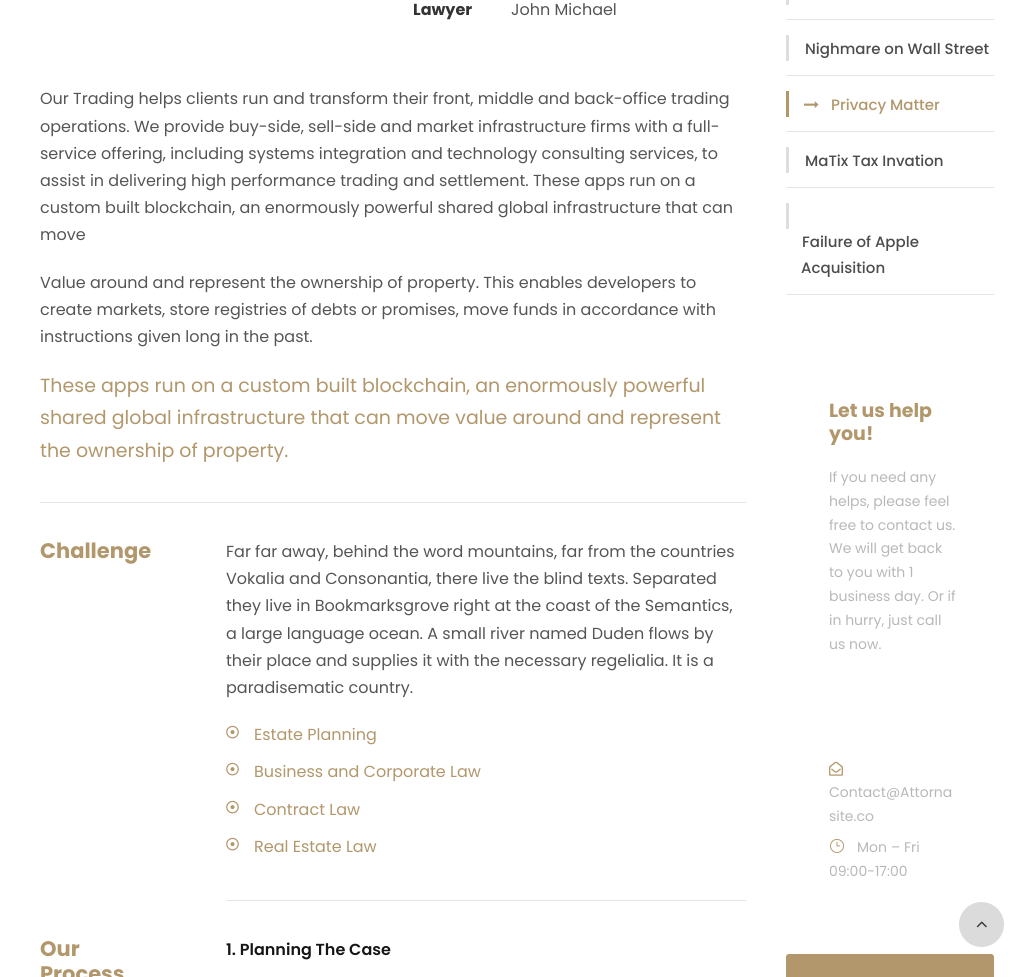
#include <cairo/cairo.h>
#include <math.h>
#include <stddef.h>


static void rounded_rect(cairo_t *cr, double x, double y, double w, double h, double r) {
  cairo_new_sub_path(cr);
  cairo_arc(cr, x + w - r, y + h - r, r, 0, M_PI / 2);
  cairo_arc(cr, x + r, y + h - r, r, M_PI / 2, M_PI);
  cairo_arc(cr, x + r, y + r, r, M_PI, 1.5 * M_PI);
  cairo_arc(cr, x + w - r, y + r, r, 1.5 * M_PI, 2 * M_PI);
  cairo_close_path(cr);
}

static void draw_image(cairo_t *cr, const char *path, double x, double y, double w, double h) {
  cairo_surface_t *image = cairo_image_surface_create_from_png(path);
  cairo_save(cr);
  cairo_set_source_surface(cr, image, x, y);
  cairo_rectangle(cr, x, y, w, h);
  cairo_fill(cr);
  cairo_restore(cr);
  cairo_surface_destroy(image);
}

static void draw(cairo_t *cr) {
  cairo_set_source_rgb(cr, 1, 1, 1);
  cairo_paint(cr);
  cairo_set_source_rgb(cr, 230 / 255.0, 230 / 255.0, 230 / 255.0);
  cairo_rectangle(cr, 40, 502, 706, 1);
  cairo_fill(cr);
  draw_image(cr, "images/1.png", 226, 725, 13, 14);
  draw_image(cr, "images/1.png", 226, 762, 13, 14);
  draw_image(cr, "images/1.png", 226, 800, 13, 14);
  draw_image(cr, "images/1.png", 226, 837, 13, 14);
  cairo_rectangle(cr, 226, 900, 520, 1);
  cairo_fill(cr);
  cairo_rectangle(cr, 786, 19, 208, 1);
  cairo_fill(cr);
  cairo_set_source_rgb(cr, 221 / 255.0, 221 / 255.0, 221 / 255.0);
  cairo_rectangle(cr, 786, 0, 3, 5);
  cairo_fill(cr);
  cairo_set_source_rgb(cr, 230 / 255.0, 230 / 255.0, 230 / 255.0);
  cairo_rectangle(cr, 786, 75, 208, 1);
  cairo_fill(cr);
  cairo_set_source_rgb(cr, 221 / 255.0, 221 / 255.0, 221 / 255.0);
  cairo_rectangle(cr, 786, 35, 3, 26);
  cairo_fill(cr);
  cairo_set_source_rgb(cr, 230 / 255.0, 230 / 255.0, 230 / 255.0);
  cairo_rectangle(cr, 786, 131, 208, 1);
  cairo_fill(cr);
  cairo_set_source_rgb(cr, 177 / 255.0, 151 / 255.0, 107 / 255.0);
  cairo_rectangle(cr, 786, 91, 3, 26);
  cairo_fill(cr);
  draw_image(cr, "images/2.png", 804, 101, 15, 7);
  cairo_set_source_rgb(cr, 230 / 255.0, 230 / 255.0, 230 / 255.0);
  cairo_rectangle(cr, 786, 187, 208, 1);
  cairo_fill(cr);
  cairo_set_source_rgb(cr, 221 / 255.0, 221 / 255.0, 221 / 255.0);
  cairo_rectangle(cr, 786, 147, 3, 26);
  cairo_fill(cr);
  cairo_set_source_rgb(cr, 230 / 255.0, 230 / 255.0, 230 / 255.0);
  cairo_rectangle(cr, 786, 294, 208, 1);
  cairo_fill(cr);
  cairo_set_source_rgb(cr, 221 / 255.0, 221 / 255.0, 221 / 255.0);
  cairo_rectangle(cr, 786, 203, 3, 26);
  cairo_fill(cr);
  draw_image(cr, "images/3.png", 829, 761, 14, 15);
  draw_image(cr, "images/4.png", 830, 839, 14, 14);
  cairo_set_source_rgb(cr, 177 / 255.0, 151 / 255.0, 107 / 255.0);
  rounded_rect(cr, 786, 954, 208, 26, 3);
  cairo_fill(cr);
  cairo_set_source_rgb(cr, 219 / 255.0, 219 / 255.0, 219 / 255.0);
  cairo_arc(cr, 981.5, 924.5, 22.5, 0, 2 * M_PI);
  cairo_fill(cr);
  draw_image(cr, "images/5.png", 976, 921, 11, 7);
  cairo_select_font_face(cr, "Poppins", CAIRO_FONT_SLANT_NORMAL, CAIRO_FONT_WEIGHT_BOLD);
  cairo_set_font_size(cr, 16);
  cairo_set_source_rgb(cr, 52 / 255.0, 52 / 255.0, 52 / 255.0);
  cairo_move_to(cr, 413, 15);
  cairo_show_text(cr, "Lawyer");
  cairo_select_font_face(cr, "Poppins", CAIRO_FONT_SLANT_NORMAL, CAIRO_FONT_WEIGHT_NORMAL);
  cairo_set_source_rgb(cr, 85 / 255.0, 85 / 255.0, 85 / 255.0);
  cairo_move_to(cr, 511, 15);
  cairo_show_text(cr, "John Michael");
  cairo_move_to(cr, 40, 104);
  cairo_show_text(cr, "Our Trading helps clients run and transform their front, middle and back-office trading");
  cairo_move_to(cr, 40, 132);
  cairo_show_text(cr, "operations. We provide buy-side, sell-side and market infrastructure firms with a full-");
  cairo_move_to(cr, 40, 159);
  cairo_show_text(cr, "service offering, including systems integration and technology consulting services, to");
  cairo_move_to(cr, 40, 186);
  cairo_show_text(cr, "assist in delivering high performance trading and settlement. These apps run on a");
  cairo_move_to(cr, 40, 213);
  cairo_show_text(cr, "custom built blockchain, an enormously powerful shared global infrastructure that can");
  cairo_move_to(cr, 40, 240);
  cairo_show_text(cr, "move");
  cairo_move_to(cr, 40, 288);
  cairo_show_text(cr, "Value around and represent the ownership of property. This enables developers to");
  cairo_move_to(cr, 40, 315);
  cairo_show_text(cr, "create markets, store registries of debts or promises, move funds in accordance with");
  cairo_move_to(cr, 40, 342);
  cairo_show_text(cr, "instructions given long in the past.");
  cairo_set_font_size(cr, 19);
  cairo_set_source_rgb(cr, 177 / 255.0, 151 / 255.0, 107 / 255.0);
  cairo_move_to(cr, 40, 392);
  cairo_show_text(cr, "These apps run on a custom built blockchain, an enormously powerful");
  cairo_move_to(cr, 40, 424);
  cairo_show_text(cr, "shared global infrastructure that can move value around and represent");
  cairo_move_to(cr, 40, 457);
  cairo_show_text(cr, "the ownership of property.");
  cairo_select_font_face(cr, "Poppins", CAIRO_FONT_SLANT_NORMAL, CAIRO_FONT_WEIGHT_BOLD);
  cairo_set_font_size(cr, 21);
  cairo_move_to(cr, 40, 558);
  cairo_show_text(cr, "Challenge");
  cairo_select_font_face(cr, "Poppins", CAIRO_FONT_SLANT_NORMAL, CAIRO_FONT_WEIGHT_NORMAL);
  cairo_set_font_size(cr, 16);
  cairo_set_source_rgb(cr, 85 / 255.0, 85 / 255.0, 85 / 255.0);
  cairo_move_to(cr, 226, 557);
  cairo_show_text(cr, "Far far away, behind the word mountains, far from the countries");
  cairo_move_to(cr, 226, 584);
  cairo_show_text(cr, "Vokalia and Consonantia, there live the blind texts. Separated");
  cairo_move_to(cr, 226, 611);
  cairo_show_text(cr, "they live in Bookmarksgrove right at the coast of the Semantics,");
  cairo_move_to(cr, 226, 639);
  cairo_show_text(cr, "a large language ocean. A small river named Duden flows by");
  cairo_move_to(cr, 226, 666);
  cairo_show_text(cr, "their place and supplies it with the necessary regelialia. It is a");
  cairo_move_to(cr, 226, 693);
  cairo_show_text(cr, "paradisematic country.");
  cairo_set_source_rgb(cr, 177 / 255.0, 151 / 255.0, 107 / 255.0);
  cairo_move_to(cr, 254, 740);
  cairo_show_text(cr, "Estate Planning");
  cairo_move_to(cr, 254, 777);
  cairo_show_text(cr, "Business and Corporate Law");
  cairo_move_to(cr, 254, 815);
  cairo_show_text(cr, "Contract Law");
  cairo_move_to(cr, 254, 852);
  cairo_show_text(cr, "Real Estate Law");
  cairo_select_font_face(cr, "Poppins", CAIRO_FONT_SLANT_NORMAL, CAIRO_FONT_WEIGHT_BOLD);
  cairo_set_font_size(cr, 21);
  cairo_move_to(cr, 40, 956);
  cairo_show_text(cr, "Our");
  cairo_move_to(cr, 40, 981);
  cairo_show_text(cr, "Process");
  cairo_select_font_face(cr, "Poppins SemiBold", CAIRO_FONT_SLANT_NORMAL, CAIRO_FONT_WEIGHT_NORMAL);
  cairo_set_font_size(cr, 16);
  cairo_set_source_rgb(cr, 22 / 255.0, 22 / 255.0, 22 / 255.0);
  cairo_move_to(cr, 226, 955);
  cairo_show_text(cr, "1. Planning The Case");
  cairo_select_font_face(cr, "Poppins Medium", CAIRO_FONT_SLANT_NORMAL, CAIRO_FONT_WEIGHT_NORMAL);
  cairo_set_font_size(cr, 15);
  cairo_set_source_rgb(cr, 76 / 255.0, 76 / 255.0, 76 / 255.0);
  cairo_move_to(cr, 805, 54);
  cairo_show_text(cr, "Nighmare on Wall Street");
  cairo_set_source_rgb(cr, 177 / 255.0, 151 / 255.0, 107 / 255.0);
  cairo_move_to(cr, 831, 110);
  cairo_show_text(cr, "Privacy Matter");
  cairo_set_source_rgb(cr, 76 / 255.0, 76 / 255.0, 76 / 255.0);
  cairo_move_to(cr, 805, 166);
  cairo_show_text(cr, "MaTix Tax Invation");
  cairo_move_to(cr, 802, 247);
  cairo_show_text(cr, "Failure of Apple");
  cairo_move_to(cr, 801, 273);
  cairo_show_text(cr, "Acquisition");
  cairo_select_font_face(cr, "Poppins", CAIRO_FONT_SLANT_NORMAL, CAIRO_FONT_WEIGHT_BOLD);
  cairo_set_font_size(cr, 19);
  cairo_set_source_rgb(cr, 177 / 255.0, 151 / 255.0, 107 / 255.0);
  cairo_move_to(cr, 829, 417);
  cairo_show_text(cr, "Let us help");
  cairo_move_to(cr, 829, 440);
  cairo_show_text(cr, "you!");
  cairo_select_font_face(cr, "Poppins", CAIRO_FONT_SLANT_NORMAL, CAIRO_FONT_WEIGHT_NORMAL);
  cairo_set_font_size(cr, 14);
  cairo_set_source_rgb(cr, 184 / 255.0, 184 / 255.0, 184 / 255.0);
  cairo_move_to(cr, 829, 482);
  cairo_show_text(cr, "If you need any");
  cairo_move_to(cr, 829, 506);
  cairo_show_text(cr, "helps, please feel");
  cairo_move_to(cr, 829, 530);
  cairo_show_text(cr, "free to contact us.");
  cairo_move_to(cr, 829, 553);
  cairo_show_text(cr, "We will get back");
  cairo_move_to(cr, 829, 577);
  cairo_show_text(cr, "to you with 1");
  cairo_move_to(cr, 829, 601);
  cairo_show_text(cr, "business day. Or if");
  cairo_move_to(cr, 829, 625);
  cairo_show_text(cr, "in hurry, just call");
  cairo_move_to(cr, 829, 649);
  cairo_show_text(cr, "us now.");
  cairo_move_to(cr, 829, 797);
  cairo_show_text(cr, "Contact@Attorna");
  cairo_move_to(cr, 829, 821);
  cairo_show_text(cr, "site.co");
  cairo_move_to(cr, 857, 852);
  cairo_show_text(cr, "Mon – Fri");
  cairo_move_to(cr, 829, 876);
  cairo_show_text(cr, "09:00-17:00");
}

int main(void) {
  cairo_surface_t *surface = cairo_image_surface_create(CAIRO_FORMAT_RGB24, 1034, 977);
  cairo_t *cr = cairo_create(surface);
  cairo_font_options_t *options = cairo_font_options_create();
  cairo_font_options_set_hint_metrics(options, CAIRO_HINT_METRICS_OFF);
  cairo_font_options_set_hint_style(options, CAIRO_HINT_STYLE_NONE);
  cairo_set_font_options(cr, options);
  cairo_set_miter_limit(cr, 4);
  draw(cr);
  cairo_surface_write_to_png(surface, "out.png");
  cairo_font_options_destroy(options);
  cairo_destroy(cr);
  cairo_surface_destroy(surface);
  return 0;
}
